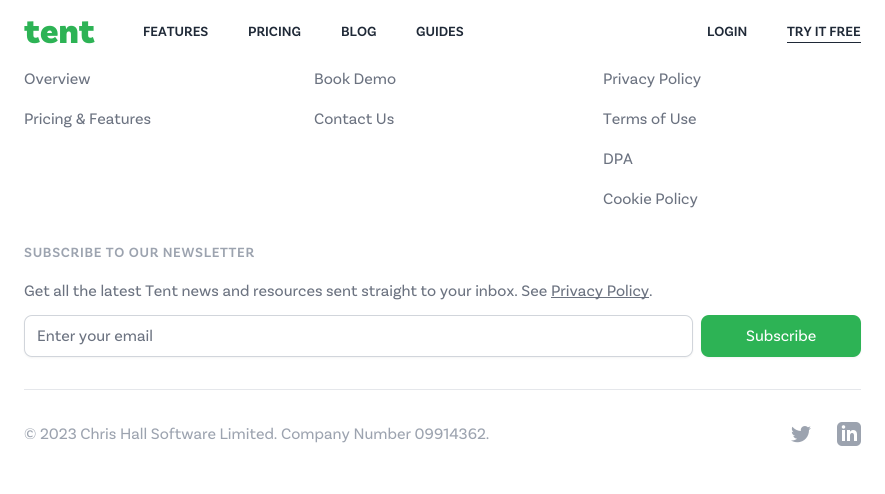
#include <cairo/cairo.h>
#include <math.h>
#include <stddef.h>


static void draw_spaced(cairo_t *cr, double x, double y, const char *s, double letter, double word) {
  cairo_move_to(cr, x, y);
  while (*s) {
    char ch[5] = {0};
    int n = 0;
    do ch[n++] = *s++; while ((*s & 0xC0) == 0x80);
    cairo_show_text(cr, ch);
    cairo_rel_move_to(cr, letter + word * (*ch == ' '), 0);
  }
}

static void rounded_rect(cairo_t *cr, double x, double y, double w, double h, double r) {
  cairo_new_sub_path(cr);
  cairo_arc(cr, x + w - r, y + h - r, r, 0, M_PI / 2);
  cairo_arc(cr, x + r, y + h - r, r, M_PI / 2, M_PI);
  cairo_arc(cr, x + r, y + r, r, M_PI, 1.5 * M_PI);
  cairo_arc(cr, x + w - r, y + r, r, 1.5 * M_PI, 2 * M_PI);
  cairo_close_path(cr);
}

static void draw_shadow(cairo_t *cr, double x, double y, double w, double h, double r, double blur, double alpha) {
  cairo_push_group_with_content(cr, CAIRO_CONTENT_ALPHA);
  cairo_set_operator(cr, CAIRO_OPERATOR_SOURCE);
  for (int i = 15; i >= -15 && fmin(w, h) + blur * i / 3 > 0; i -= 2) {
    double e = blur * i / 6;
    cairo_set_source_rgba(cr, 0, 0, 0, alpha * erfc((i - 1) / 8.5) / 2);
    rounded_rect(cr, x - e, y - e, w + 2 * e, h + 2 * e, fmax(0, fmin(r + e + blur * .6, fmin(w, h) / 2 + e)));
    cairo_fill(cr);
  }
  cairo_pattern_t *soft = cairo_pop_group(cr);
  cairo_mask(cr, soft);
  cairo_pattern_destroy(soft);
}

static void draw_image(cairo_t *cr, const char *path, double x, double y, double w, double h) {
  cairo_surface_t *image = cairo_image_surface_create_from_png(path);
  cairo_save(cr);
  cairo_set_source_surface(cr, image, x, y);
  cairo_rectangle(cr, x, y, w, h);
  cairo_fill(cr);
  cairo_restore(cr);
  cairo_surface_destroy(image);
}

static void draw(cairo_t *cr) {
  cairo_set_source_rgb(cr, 1, 1, 1);
  cairo_paint(cr);
  cairo_set_source_rgb(cr, 31 / 255.0, 41 / 255.0, 55 / 255.0);
  cairo_rectangle(cr, 787, 42, 74, 1);
  cairo_fill(cr);
  cairo_set_source_rgb(cr, 107 / 255.0, 114 / 255.0, 128 / 255.0);
  cairo_rectangle(cr, 551, 297, 98, 1);
  cairo_fill(cr);
  cairo_set_source_rgb(cr, 0, 0, 0);
  draw_shadow(cr, 24, 316, 669, 42, 8, 1, 0.05);
  cairo_set_source_rgb(cr, 1, 1, 1);
  rounded_rect(cr, 24.5, 315.5, 668, 41, 7.5);
  cairo_fill_preserve(cr);
  cairo_set_source_rgb(cr, 209 / 255.0, 213 / 255.0, 219 / 255.0);
  cairo_set_line_width(cr, 1);
  cairo_stroke(cr);
  cairo_set_source_rgb(cr, 0, 0, 0);
  draw_shadow(cr, 701, 316, 160, 42, 8, 1, 0.05);
  cairo_set_source_rgb(cr, 45 / 255.0, 179 / 255.0, 85 / 255.0);
  rounded_rect(cr, 701, 315, 160, 42, 8);
  cairo_fill(cr);
  cairo_set_source_rgb(cr, 229 / 255.0, 231 / 255.0, 235 / 255.0);
  cairo_rectangle(cr, 24, 389, 837, 1);
  cairo_fill(cr);
  draw_image(cr, "images/1.png", 791, 426, 20, 17);
  draw_image(cr, "images/2.png", 837, 422, 24, 24);
  cairo_select_font_face(cr, "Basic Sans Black", CAIRO_FONT_SLANT_NORMAL, CAIRO_FONT_WEIGHT_NORMAL);
  cairo_set_font_size(cr, 36);
  cairo_set_source_rgb(cr, 45 / 255.0, 179 / 255.0, 85 / 255.0);
  cairo_move_to(cr, 24, 43);
  cairo_show_text(cr, "tent");
  cairo_select_font_face(cr, "Basic Sans SemiBold", CAIRO_FONT_SLANT_NORMAL, CAIRO_FONT_WEIGHT_NORMAL);
  cairo_set_font_size(cr, 14);
  cairo_set_source_rgb(cr, 31 / 255.0, 41 / 255.0, 55 / 255.0);
  cairo_move_to(cr, 143, 36);
  cairo_show_text(cr, "FEATURES");
  cairo_move_to(cr, 248, 36);
  cairo_show_text(cr, "PRICING");
  cairo_move_to(cr, 341, 36);
  cairo_show_text(cr, "BLOG");
  cairo_move_to(cr, 416, 36);
  cairo_show_text(cr, "GUIDES");
  cairo_move_to(cr, 707, 36);
  cairo_show_text(cr, "LOGIN");
  cairo_move_to(cr, 787, 36);
  cairo_show_text(cr, "TRY IT FREE");
  cairo_select_font_face(cr, "Basic Sans", CAIRO_FONT_SLANT_NORMAL, CAIRO_FONT_WEIGHT_NORMAL);
  cairo_set_font_size(cr, 16);
  cairo_set_source_rgb(cr, 107 / 255.0, 114 / 255.0, 128 / 255.0);
  cairo_move_to(cr, 24, 84);
  cairo_show_text(cr, "Overview");
  cairo_move_to(cr, 24, 124);
  cairo_show_text(cr, "Pricing & Features");
  cairo_move_to(cr, 314, 84);
  cairo_show_text(cr, "Book Demo");
  cairo_move_to(cr, 314, 124);
  cairo_show_text(cr, "Contact Us");
  cairo_move_to(cr, 603, 84);
  cairo_show_text(cr, "Privacy Policy");
  cairo_move_to(cr, 603, 124);
  cairo_show_text(cr, "Terms of Use");
  cairo_move_to(cr, 603, 164);
  cairo_show_text(cr, "DPA");
  cairo_move_to(cr, 603, 204);
  cairo_show_text(cr, "Cookie Policy");
  cairo_select_font_face(cr, "Basic Sans SemiBold", CAIRO_FONT_SLANT_NORMAL, CAIRO_FONT_WEIGHT_NORMAL);
  cairo_set_font_size(cr, 14);
  cairo_set_source_rgb(cr, 156 / 255.0, 163 / 255.0, 175 / 255.0);
  draw_spaced(cr, 24, 257, "SUBSCRIBE TO OUR NEWSLETTER", 0.7, 0);
  cairo_select_font_face(cr, "Basic Sans", CAIRO_FONT_SLANT_NORMAL, CAIRO_FONT_WEIGHT_NORMAL);
  cairo_set_font_size(cr, 16);
  cairo_set_source_rgb(cr, 107 / 255.0, 114 / 255.0, 128 / 255.0);
  cairo_move_to(cr, 24, 296);
  cairo_show_text(cr, "Get all the latest Tent news and resources sent straight to your inbox. See");
  cairo_move_to(cr, 551, 296);
  cairo_show_text(cr, "Privacy Policy.");
  cairo_move_to(cr, 37, 341);
  cairo_show_text(cr, "Enter your email");
  cairo_set_source_rgb(cr, 1, 1, 1);
  cairo_move_to(cr, 746, 341);
  cairo_show_text(cr, "Subscribe");
  cairo_set_source_rgb(cr, 156 / 255.0, 163 / 255.0, 175 / 255.0);
  cairo_move_to(cr, 24, 439);
  cairo_show_text(cr, "© 2023 Chris Hall Software Limited. Company Number 09914362.");
}

int main(void) {
  cairo_surface_t *surface = cairo_image_surface_create(CAIRO_FORMAT_RGB24, 885, 494);
  cairo_t *cr = cairo_create(surface);
  cairo_font_options_t *options = cairo_font_options_create();
  cairo_font_options_set_hint_metrics(options, CAIRO_HINT_METRICS_OFF);
  cairo_font_options_set_hint_style(options, CAIRO_HINT_STYLE_NONE);
  cairo_set_font_options(cr, options);
  cairo_set_miter_limit(cr, 4);
  draw(cr);
  cairo_surface_write_to_png(surface, "out.png");
  cairo_font_options_destroy(options);
  cairo_destroy(cr);
  cairo_surface_destroy(surface);
  return 0;
}
